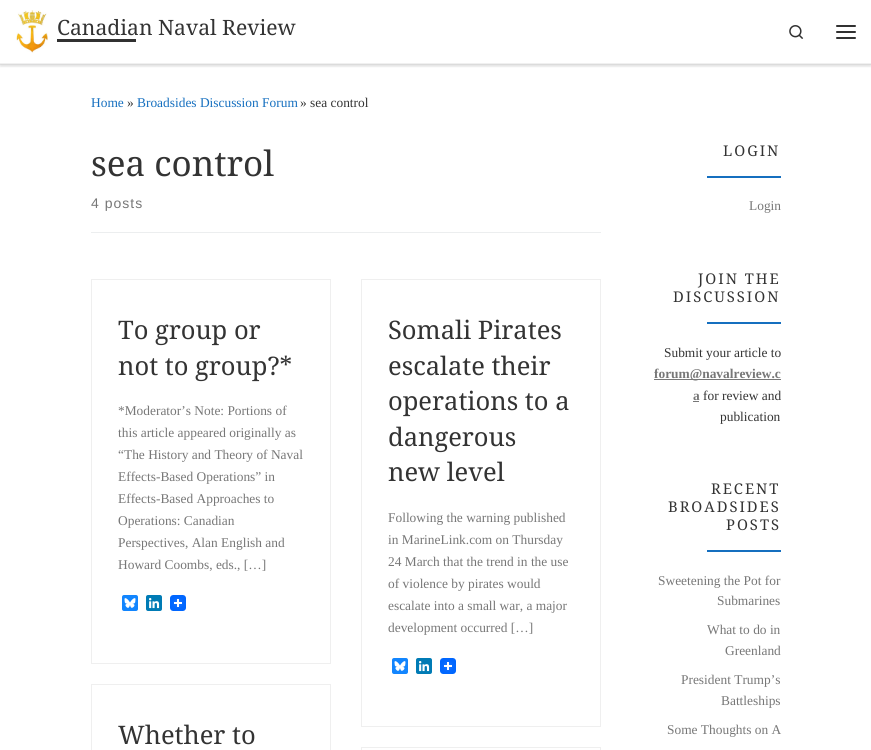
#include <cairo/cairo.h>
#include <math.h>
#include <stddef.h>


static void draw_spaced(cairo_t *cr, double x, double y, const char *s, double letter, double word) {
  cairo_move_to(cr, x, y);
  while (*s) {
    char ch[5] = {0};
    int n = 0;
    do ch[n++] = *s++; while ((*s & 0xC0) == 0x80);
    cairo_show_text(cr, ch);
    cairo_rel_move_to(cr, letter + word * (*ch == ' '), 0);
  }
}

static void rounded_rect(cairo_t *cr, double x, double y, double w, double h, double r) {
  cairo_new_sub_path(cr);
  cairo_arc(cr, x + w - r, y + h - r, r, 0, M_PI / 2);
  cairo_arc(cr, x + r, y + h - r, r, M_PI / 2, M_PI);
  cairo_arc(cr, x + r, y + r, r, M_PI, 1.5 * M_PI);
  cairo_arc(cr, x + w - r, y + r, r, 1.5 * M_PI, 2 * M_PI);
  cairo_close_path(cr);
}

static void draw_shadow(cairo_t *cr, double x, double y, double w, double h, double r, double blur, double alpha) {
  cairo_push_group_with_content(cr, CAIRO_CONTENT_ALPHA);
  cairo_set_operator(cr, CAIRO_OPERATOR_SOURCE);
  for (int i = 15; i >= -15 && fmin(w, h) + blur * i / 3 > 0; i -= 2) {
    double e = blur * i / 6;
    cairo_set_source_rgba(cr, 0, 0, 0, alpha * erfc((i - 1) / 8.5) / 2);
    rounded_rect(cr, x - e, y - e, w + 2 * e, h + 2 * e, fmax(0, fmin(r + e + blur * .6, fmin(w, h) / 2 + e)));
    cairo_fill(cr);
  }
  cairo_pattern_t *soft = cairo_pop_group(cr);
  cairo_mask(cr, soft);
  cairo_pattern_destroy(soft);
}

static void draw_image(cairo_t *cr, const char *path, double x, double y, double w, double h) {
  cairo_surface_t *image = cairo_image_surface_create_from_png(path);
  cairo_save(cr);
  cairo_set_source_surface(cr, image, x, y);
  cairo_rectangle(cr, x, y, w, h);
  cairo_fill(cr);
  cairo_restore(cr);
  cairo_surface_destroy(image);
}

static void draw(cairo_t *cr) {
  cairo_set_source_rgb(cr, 1, 1, 1);
  cairo_paint(cr);
  cairo_save(cr);
  cairo_rectangle(cr, 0, 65, 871, 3);
  cairo_clip(cr);
  cairo_set_source_rgb(cr, 102 / 255.0, 102 / 255.0, 102 / 255.0);
  draw_shadow(cr, 0, 2, 871, 65, 0, 1, 0.08);
  cairo_restore(cr);
  cairo_set_source_rgb(cr, 239 / 255.0, 239 / 255.0, 239 / 255.0);
  cairo_rectangle(cr, 0, 64, 871, 1);
  cairo_fill(cr);
  cairo_save(cr);
  cairo_rectangle(cr, 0, 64, 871, 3);
  cairo_clip(cr);
  cairo_set_source_rgb(cr, 0, 0, 0);
  draw_shadow(cr, 0, 0, 871, 64, 0, 2.5, 0.2);
  cairo_restore(cr);
  draw_image(cr, "images/1.png", 16, 10, 32, 43);
  cairo_set_source_rgb(cr, 49 / 255.0, 49 / 255.0, 49 / 255.0);
  cairo_rectangle(cr, 57, 39, 79, 3);
  cairo_fill(cr);
  draw_image(cr, "images/2.png", 789, 25, 15, 14);
  rounded_rect(cr, 836, 25, 20, 2, 1);
  cairo_fill(cr);
  rounded_rect(cr, 836, 31, 20, 2, 1);
  cairo_fill(cr);
  rounded_rect(cr, 836, 37, 20, 2, 1);
  cairo_fill(cr);
  cairo_set_source_rgb(cr, 240 / 255.0, 240 / 255.0, 240 / 255.0);
  cairo_rectangle(cr, 0, 63, 871, 1);
  cairo_fill(cr);
  cairo_set_source_rgb(cr, 236 / 255.0, 238 / 255.0, 239 / 255.0);
  cairo_rectangle(cr, 91, 232, 510, 1);
  cairo_fill(cr);
  cairo_rectangle(cr, 91.5, 279.5, 239, 384);
  cairo_set_source_rgb(cr, 239 / 255.0, 239 / 255.0, 239 / 255.0);
  cairo_set_line_width(cr, 1);
  cairo_stroke(cr);
  cairo_set_source_rgb(cr, 18 / 255.0, 133 / 255.0, 254 / 255.0);
  rounded_rect(cr, 122, 595, 16, 16, 2);
  cairo_fill(cr);
  draw_image(cr, "images/3.png", 124, 598, 12, 10);
  cairo_set_source_rgb(cr, 0, 123 / 255.0, 181 / 255.0);
  rounded_rect(cr, 146, 595, 16, 16, 2);
  cairo_fill(cr);
  draw_image(cr, "images/4.png", 149, 598, 11, 11);
  draw_image(cr, "images/5.png", 170, 595, 16, 16);
  cairo_rectangle(cr, 361.5, 279.5, 239, 447);
  cairo_set_source_rgb(cr, 239 / 255.0, 239 / 255.0, 239 / 255.0);
  cairo_stroke(cr);
  cairo_set_source_rgb(cr, 18 / 255.0, 133 / 255.0, 254 / 255.0);
  rounded_rect(cr, 392, 658, 16, 16, 2);
  cairo_fill(cr);
  draw_image(cr, "images/3.png", 394, 661, 12, 10);
  cairo_set_source_rgb(cr, 0, 123 / 255.0, 181 / 255.0);
  rounded_rect(cr, 416, 658, 16, 16, 2);
  cairo_fill(cr);
  draw_image(cr, "images/4.png", 419, 661, 11, 11);
  draw_image(cr, "images/5.png", 440, 658, 16, 16);
  cairo_rectangle(cr, 91.5, 684.5, 239, 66);
  cairo_set_source_rgb(cr, 239 / 255.0, 239 / 255.0, 239 / 255.0);
  cairo_stroke(cr);
  cairo_rectangle(cr, 361.5, 747.5, 239, 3);
  cairo_stroke(cr);
  cairo_set_source_rgb(cr, 21 / 255.0, 111 / 255.0, 191 / 255.0);
  cairo_rectangle(cr, 707, 176, 74, 2);
  cairo_fill(cr);
  cairo_rectangle(cr, 707, 322, 74, 2);
  cairo_fill(cr);
  cairo_set_source_rgb(cr, 119 / 255.0, 119 / 255.0, 119 / 255.0);
  cairo_rectangle(cr, 654, 379, 127, 1);
  cairo_fill(cr);
  cairo_rectangle(cr, 693, 401, 6, 1);
  cairo_fill(cr);
  cairo_set_source_rgb(cr, 21 / 255.0, 111 / 255.0, 191 / 255.0);
  cairo_rectangle(cr, 707, 550, 74, 2);
  cairo_fill(cr);
  cairo_select_font_face(cr, "Noto Serif", CAIRO_FONT_SLANT_NORMAL, CAIRO_FONT_WEIGHT_NORMAL);
  cairo_set_font_size(cr, 21.1);
  cairo_set_source_rgb(cr, 51 / 255.0, 51 / 255.0, 51 / 255.0);
  cairo_move_to(cr, 57, 35);
  cairo_show_text(cr, "Canadian Naval Review");
  cairo_select_font_face(cr, "Liberation Serif", CAIRO_FONT_SLANT_NORMAL, CAIRO_FONT_WEIGHT_NORMAL);
  cairo_set_font_size(cr, 13.4);
  cairo_set_source_rgb(cr, 21 / 255.0, 111 / 255.0, 191 / 255.0);
  cairo_move_to(cr, 91, 107);
  cairo_show_text(cr, "Home");
  cairo_set_source_rgb(cr, 51 / 255.0, 51 / 255.0, 51 / 255.0);
  cairo_move_to(cr, 127, 107);
  cairo_show_text(cr, "»");
  cairo_set_source_rgb(cr, 21 / 255.0, 111 / 255.0, 191 / 255.0);
  cairo_move_to(cr, 137, 107);
  cairo_show_text(cr, "Broadsides Discussion Forum");
  cairo_set_source_rgb(cr, 51 / 255.0, 51 / 255.0, 51 / 255.0);
  cairo_move_to(cr, 300, 107);
  cairo_show_text(cr, "» sea control");
  cairo_select_font_face(cr, "Noto Serif", CAIRO_FONT_SLANT_NORMAL, CAIRO_FONT_WEIGHT_NORMAL);
  cairo_set_font_size(cr, 35);
  cairo_move_to(cr, 91, 176);
  cairo_show_text(cr, "sea control");
  cairo_select_font_face(cr, "Liberation Sans", CAIRO_FONT_SLANT_NORMAL, CAIRO_FONT_WEIGHT_NORMAL);
  cairo_set_font_size(cr, 14);
  cairo_set_source_rgb(cr, 119 / 255.0, 119 / 255.0, 119 / 255.0);
  draw_spaced(cr, 91, 208, "4 posts", 1, 0);
  cairo_select_font_face(cr, "Noto Serif", CAIRO_FONT_SLANT_NORMAL, CAIRO_FONT_WEIGHT_NORMAL);
  cairo_set_font_size(cr, 25.5);
  cairo_set_source_rgb(cr, 51 / 255.0, 51 / 255.0, 51 / 255.0);
  cairo_move_to(cr, 118, 339);
  cairo_show_text(cr, "To group or");
  cairo_move_to(cr, 118, 375);
  cairo_show_text(cr, "not to group?*");
  cairo_select_font_face(cr, "Liberation Serif", CAIRO_FONT_SLANT_NORMAL, CAIRO_FONT_WEIGHT_NORMAL);
  cairo_set_font_size(cr, 13.4);
  cairo_set_source_rgb(cr, 119 / 255.0, 119 / 255.0, 119 / 255.0);
  cairo_move_to(cr, 118, 415);
  cairo_show_text(cr, "*Moderator’s Note: Portions of");
  cairo_move_to(cr, 118, 437);
  cairo_show_text(cr, "this article appeared originally as");
  cairo_move_to(cr, 118, 459);
  cairo_show_text(cr, "“The History and Theory of Naval");
  cairo_move_to(cr, 118, 481);
  cairo_show_text(cr, "Effects-Based Operations” in");
  cairo_move_to(cr, 118, 503);
  cairo_show_text(cr, "Effects-Based Approaches to");
  cairo_move_to(cr, 118, 525);
  cairo_show_text(cr, "Operations: Canadian");
  cairo_move_to(cr, 118, 547);
  cairo_show_text(cr, "Perspectives, Alan English and");
  cairo_move_to(cr, 118, 569);
  cairo_show_text(cr, "Howard Coombs, eds., […]");
  cairo_select_font_face(cr, "Noto Serif", CAIRO_FONT_SLANT_NORMAL, CAIRO_FONT_WEIGHT_NORMAL);
  cairo_set_font_size(cr, 25.5);
  cairo_set_source_rgb(cr, 51 / 255.0, 51 / 255.0, 51 / 255.0);
  cairo_move_to(cr, 388, 339);
  cairo_show_text(cr, "Somali Pirates");
  cairo_move_to(cr, 388, 375);
  cairo_show_text(cr, "escalate their");
  cairo_move_to(cr, 388, 410);
  cairo_show_text(cr, "operations to a");
  cairo_move_to(cr, 388, 446);
  cairo_show_text(cr, "dangerous");
  cairo_move_to(cr, 388, 481);
  cairo_show_text(cr, "new level");
  cairo_select_font_face(cr, "Liberation Serif", CAIRO_FONT_SLANT_NORMAL, CAIRO_FONT_WEIGHT_NORMAL);
  cairo_set_font_size(cr, 13.4);
  cairo_set_source_rgb(cr, 119 / 255.0, 119 / 255.0, 119 / 255.0);
  cairo_move_to(cr, 388, 522);
  cairo_show_text(cr, "Following the warning published");
  cairo_move_to(cr, 388, 544);
  cairo_show_text(cr, "in MarineLink.com on Thursday");
  cairo_move_to(cr, 388, 566);
  cairo_show_text(cr, "24 March that the trend in the use");
  cairo_move_to(cr, 388, 588);
  cairo_show_text(cr, "of violence by pirates would");
  cairo_move_to(cr, 388, 610);
  cairo_show_text(cr, "escalate into a small war, a major");
  cairo_move_to(cr, 388, 632);
  cairo_show_text(cr, "development occurred […]");
  cairo_select_font_face(cr, "Noto Serif", CAIRO_FONT_SLANT_NORMAL, CAIRO_FONT_WEIGHT_NORMAL);
  cairo_set_font_size(cr, 25.5);
  cairo_set_source_rgb(cr, 51 / 255.0, 51 / 255.0, 51 / 255.0);
  cairo_move_to(cr, 118, 744);
  cairo_show_text(cr, "Whether to");
  cairo_set_font_size(cr, 14.75);
  draw_spaced(cr, 723, 156, "LOGIN", 2, 0);
  cairo_select_font_face(cr, "Liberation Serif", CAIRO_FONT_SLANT_NORMAL, CAIRO_FONT_WEIGHT_NORMAL);
  cairo_set_font_size(cr, 13.4);
  cairo_set_source_rgb(cr, 119 / 255.0, 119 / 255.0, 119 / 255.0);
  cairo_move_to(cr, 749, 210);
  cairo_show_text(cr, "Login");
  cairo_select_font_face(cr, "Noto Serif", CAIRO_FONT_SLANT_NORMAL, CAIRO_FONT_WEIGHT_NORMAL);
  cairo_set_font_size(cr, 14.75);
  cairo_set_source_rgb(cr, 51 / 255.0, 51 / 255.0, 51 / 255.0);
  draw_spaced(cr, 698, 284, "JOIN THE", 2, 0);
  draw_spaced(cr, 673, 302, "DISCUSSION", 2, 0);
  cairo_select_font_face(cr, "Liberation Serif", CAIRO_FONT_SLANT_NORMAL, CAIRO_FONT_WEIGHT_NORMAL);
  cairo_set_font_size(cr, 13.4);
  cairo_move_to(cr, 664, 357);
  cairo_show_text(cr, "Submit your article to");
  cairo_select_font_face(cr, "Liberation Serif", CAIRO_FONT_SLANT_NORMAL, CAIRO_FONT_WEIGHT_BOLD);
  cairo_set_source_rgb(cr, 119 / 255.0, 119 / 255.0, 119 / 255.0);
  cairo_move_to(cr, 654, 378);
  cairo_show_text(cr, "forum@navalreview.c");
  cairo_move_to(cr, 693, 400);
  cairo_show_text(cr, "a");
  cairo_select_font_face(cr, "Liberation Serif", CAIRO_FONT_SLANT_NORMAL, CAIRO_FONT_WEIGHT_NORMAL);
  cairo_set_source_rgb(cr, 51 / 255.0, 51 / 255.0, 51 / 255.0);
  cairo_move_to(cr, 703, 400);
  cairo_show_text(cr, "for review and");
  cairo_move_to(cr, 720, 421);
  cairo_show_text(cr, "publication");
  cairo_select_font_face(cr, "Noto Serif", CAIRO_FONT_SLANT_NORMAL, CAIRO_FONT_WEIGHT_NORMAL);
  cairo_set_font_size(cr, 14.75);
  draw_spaced(cr, 711, 494, "RECENT", 2, 0);
  draw_spaced(cr, 668, 512, "BROADSIDES", 2, 0);
  draw_spaced(cr, 726, 530, "POSTS", 2, 0);
  cairo_select_font_face(cr, "Liberation Serif", CAIRO_FONT_SLANT_NORMAL, CAIRO_FONT_WEIGHT_NORMAL);
  cairo_set_font_size(cr, 13.4);
  cairo_set_source_rgb(cr, 119 / 255.0, 119 / 255.0, 119 / 255.0);
  cairo_move_to(cr, 658, 585);
  cairo_show_text(cr, "Sweetening the Pot for");
  cairo_move_to(cr, 717, 605);
  cairo_show_text(cr, "Submarines");
  cairo_move_to(cr, 707, 634);
  cairo_show_text(cr, "What to do in");
  cairo_move_to(cr, 725, 655);
  cairo_show_text(cr, "Greenland");
  cairo_move_to(cr, 681, 684);
  cairo_show_text(cr, "President Trump’s");
  cairo_move_to(cr, 721, 705);
  cairo_show_text(cr, "Battleships");
  cairo_move_to(cr, 667, 734);
  cairo_show_text(cr, "Some Thoughts on A");
}

int main(void) {
  cairo_surface_t *surface = cairo_image_surface_create(CAIRO_FORMAT_RGB24, 871, 750);
  cairo_t *cr = cairo_create(surface);
  cairo_font_options_t *options = cairo_font_options_create();
  cairo_font_options_set_hint_metrics(options, CAIRO_HINT_METRICS_OFF);
  cairo_font_options_set_hint_style(options, CAIRO_HINT_STYLE_NONE);
  cairo_set_font_options(cr, options);
  cairo_set_miter_limit(cr, 4);
  draw(cr);
  cairo_surface_write_to_png(surface, "out.png");
  cairo_font_options_destroy(options);
  cairo_destroy(cr);
  cairo_surface_destroy(surface);
  return 0;
}
